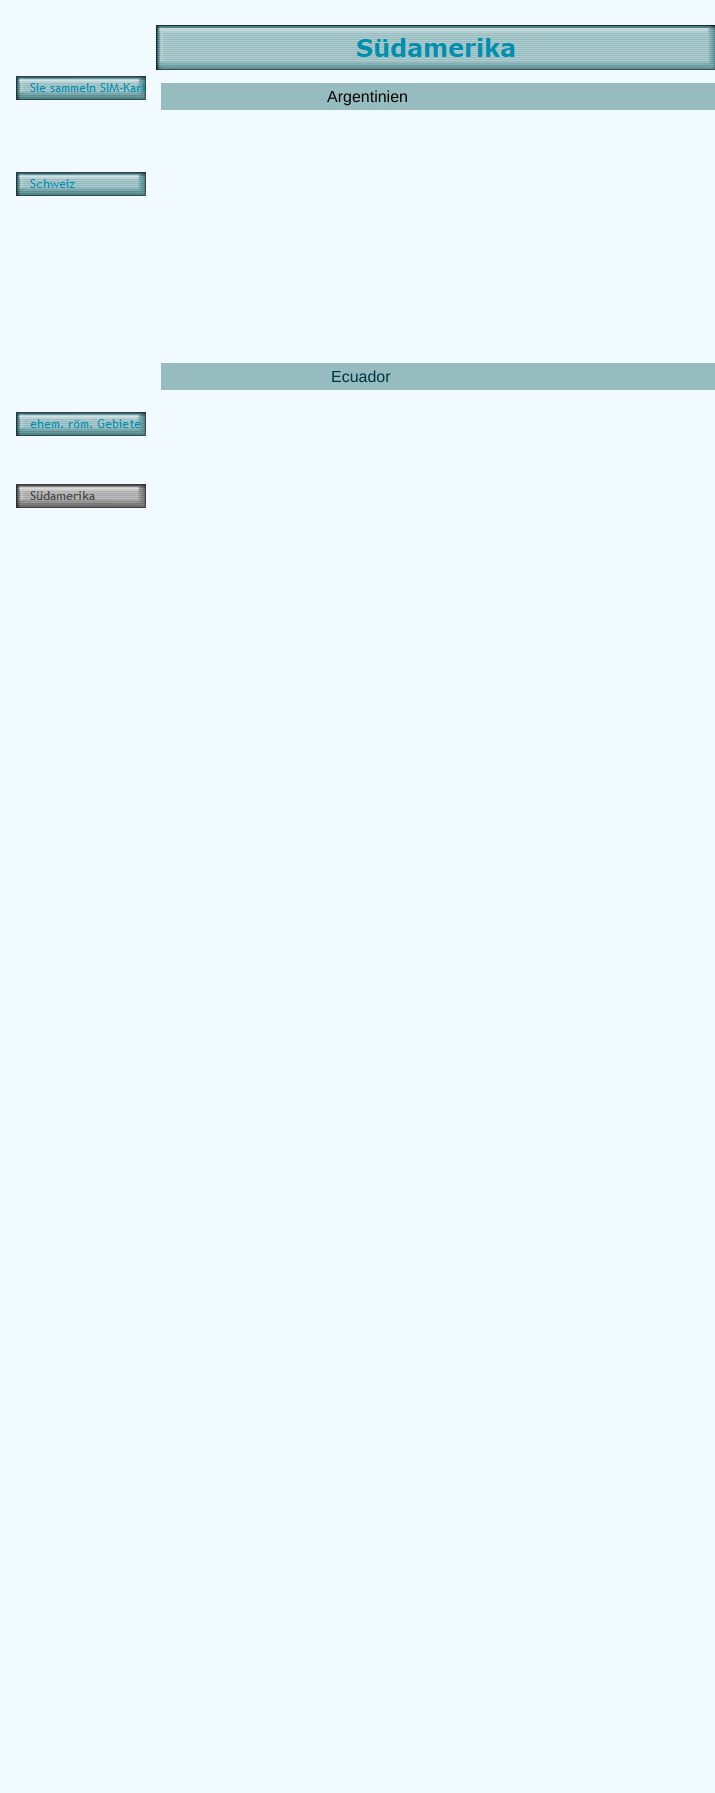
#include <cairo/cairo.h>
#include <math.h>
#include <stddef.h>


static void draw_image(cairo_t *cr, const char *path, double x, double y, double w, double h) {
  cairo_surface_t *image = cairo_image_surface_create_from_png(path);
  cairo_save(cr);
  cairo_set_source_surface(cr, image, x, y);
  cairo_rectangle(cr, x, y, w, h);
  cairo_fill(cr);
  cairo_restore(cr);
  cairo_surface_destroy(image);
}

static void draw(cairo_t *cr) {
  cairo_set_source_rgb(cr, 240 / 255.0, 250 / 255.0, 1);
  cairo_paint(cr);
  draw_image(cr, "images/1.png", 16, 76, 130, 24);
  draw_image(cr, "images/2.png", 16, 172, 130, 24);
  draw_image(cr, "images/3.png", 16, 412, 130, 24);
  draw_image(cr, "images/4.png", 16, 484, 130, 24);
  draw_image(cr, "images/5.png", 156, 25, 559, 45);
  cairo_set_source_rgb(cr, 151 / 255.0, 188 / 255.0, 192 / 255.0);
  cairo_rectangle(cr, 161, 83, 554, 27);
  cairo_fill(cr);
  cairo_rectangle(cr, 161, 363, 554, 27);
  cairo_fill(cr);
  cairo_select_font_face(cr, "Liberation Sans", CAIRO_FONT_SLANT_NORMAL, CAIRO_FONT_WEIGHT_NORMAL);
  cairo_set_font_size(cr, 16);
  cairo_set_source_rgb(cr, 0, 0, 0);
  cairo_move_to(cr, 327, 102);
  cairo_show_text(cr, "Argentinien");
  cairo_set_source_rgb(cr, 0, 51 / 255.0, 63 / 255.0);
  cairo_move_to(cr, 331, 382);
  cairo_show_text(cr, "Ecuador");
}

int main(void) {
  cairo_surface_t *surface = cairo_image_surface_create(CAIRO_FORMAT_RGB24, 715, 1793);
  cairo_t *cr = cairo_create(surface);
  cairo_font_options_t *options = cairo_font_options_create();
  cairo_font_options_set_hint_metrics(options, CAIRO_HINT_METRICS_OFF);
  cairo_font_options_set_hint_style(options, CAIRO_HINT_STYLE_NONE);
  cairo_set_font_options(cr, options);
  cairo_set_miter_limit(cr, 4);
  draw(cr);
  cairo_surface_write_to_png(surface, "out.png");
  cairo_font_options_destroy(options);
  cairo_destroy(cr);
  cairo_surface_destroy(surface);
  return 0;
}
